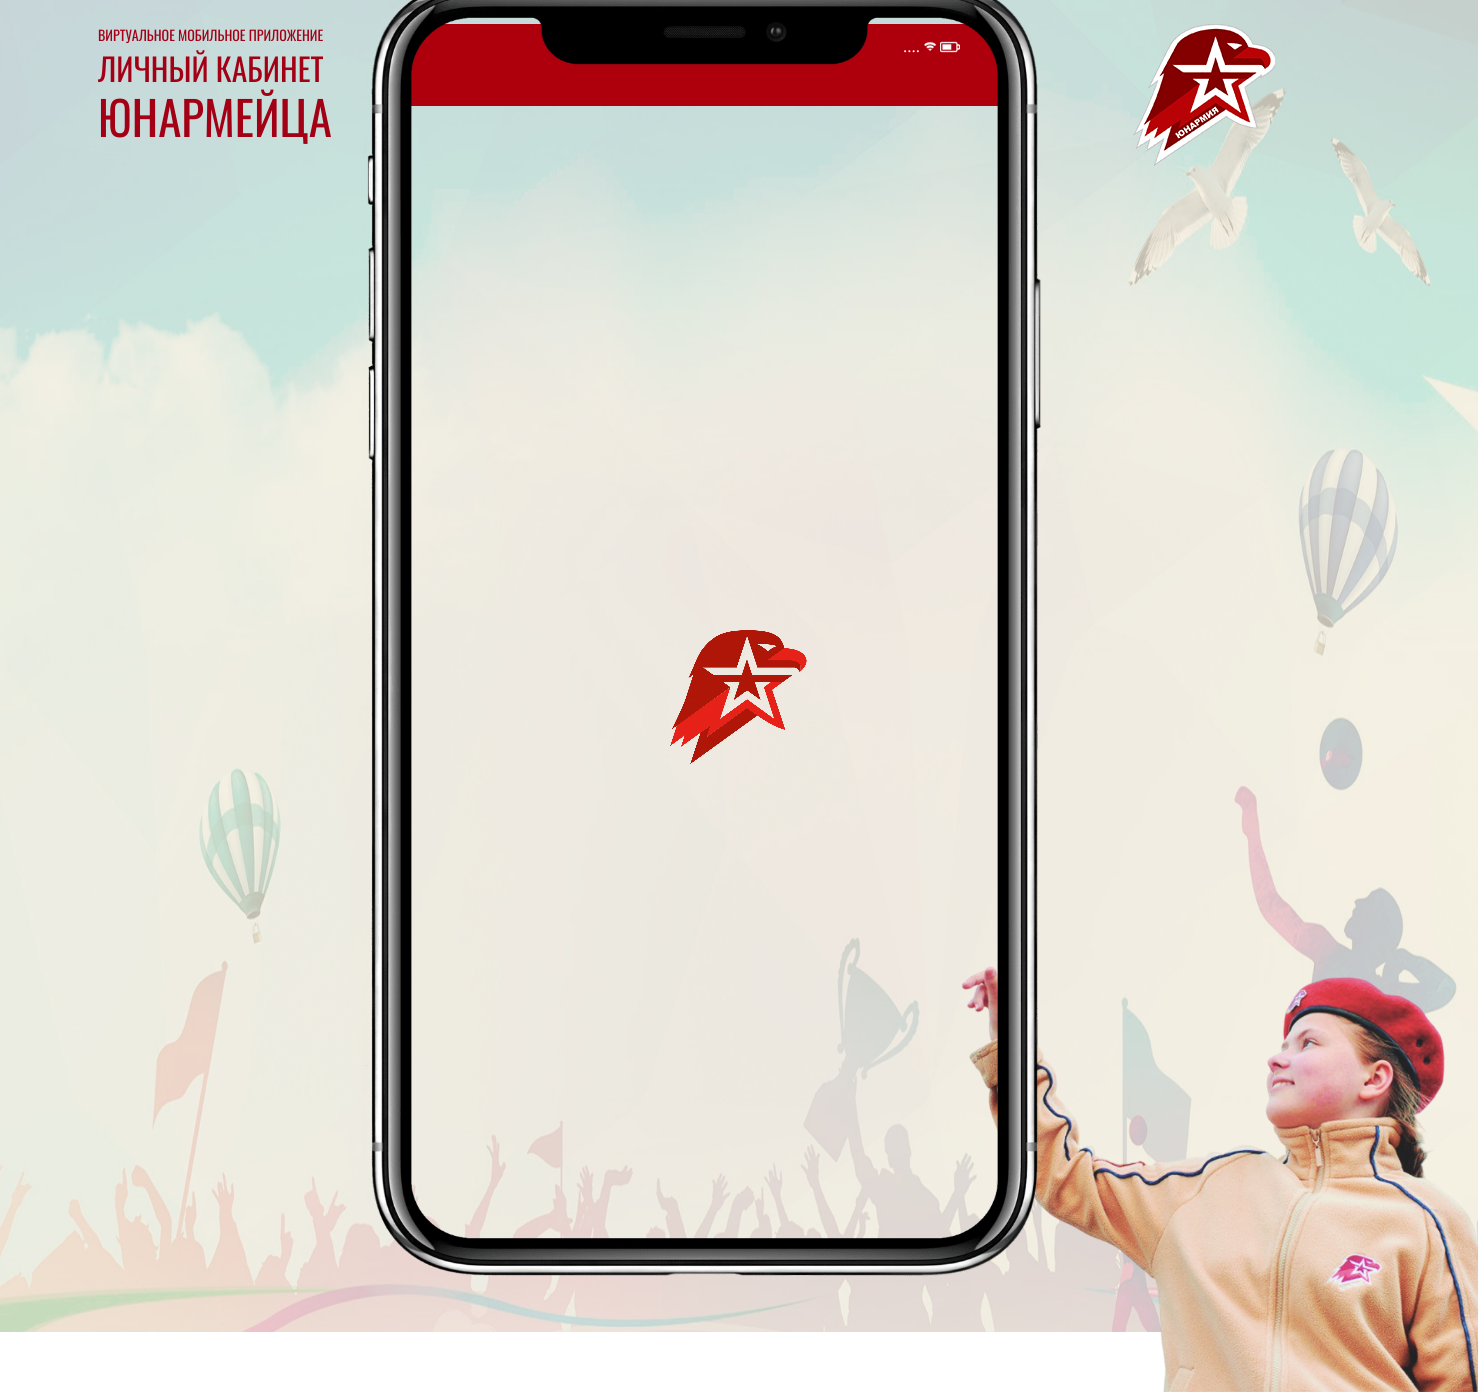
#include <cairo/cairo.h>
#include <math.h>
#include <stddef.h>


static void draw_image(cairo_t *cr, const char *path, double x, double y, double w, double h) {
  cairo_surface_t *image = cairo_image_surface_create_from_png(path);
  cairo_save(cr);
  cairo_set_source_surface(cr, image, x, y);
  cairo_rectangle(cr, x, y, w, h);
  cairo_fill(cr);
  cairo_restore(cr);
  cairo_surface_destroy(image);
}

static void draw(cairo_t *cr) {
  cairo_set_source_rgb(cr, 1, 1, 1);
  cairo_paint(cr);
  draw_image(cr, "images/1.png", 0, 0, 1478, 1332);
  cairo_set_source_rgb(cr, 174 / 255.0, 0, 12 / 255.0);
  cairo_rectangle(cr, 411, 24, 587, 82);
  cairo_fill(cr);
  draw_image(cr, "images/5.png", 1133, 24, 142, 142);
  draw_image(cr, "images/6.png", 961, 966, 517, 426);
  draw_image(cr, "images/7.png", 670, 630, 137, 134);
  cairo_select_font_face(cr, "Oswald", CAIRO_FONT_SLANT_NORMAL, CAIRO_FONT_WEIGHT_NORMAL);
  cairo_set_font_size(cr, 14);
  cairo_set_source_rgb(cr, 164 / 255.0, 0, 21 / 255.0);
  cairo_move_to(cr, 98, 41);
  cairo_show_text(cr, "ВИРТУАЛЬНОЕ МОБИЛЬНОЕ ПРИЛОЖЕНИЕ");
  cairo_set_font_size(cr, 31.5);
  cairo_move_to(cr, 98, 82);
  cairo_show_text(cr, "ЛИЧНЫЙ КАБИНЕТ");
  cairo_set_font_size(cr, 47);
  cairo_move_to(cr, 98, 137);
  cairo_show_text(cr, "ЮНАРМЕЙЦА");
  cairo_select_font_face(cr, "Liberation Serif", CAIRO_FONT_SLANT_NORMAL, CAIRO_FONT_WEIGHT_NORMAL);
  cairo_set_font_size(cr, 17);
  cairo_set_source_rgb(cr, 1, 1, 1);
  cairo_move_to(cr, 903, 52);
  cairo_show_text(cr, "....");
  draw_image(cr, "images/2.png", 362, 0, 679, 1276);
  draw_image(cr, "images/3.png", 924, 41, 13, 10);
  draw_image(cr, "images/4.png", 940, 41, 20, 12);
}

int main(void) {
  cairo_surface_t *surface = cairo_image_surface_create(CAIRO_FORMAT_RGB24, 1478, 1392);
  cairo_t *cr = cairo_create(surface);
  cairo_font_options_t *options = cairo_font_options_create();
  cairo_font_options_set_hint_metrics(options, CAIRO_HINT_METRICS_OFF);
  cairo_font_options_set_hint_style(options, CAIRO_HINT_STYLE_NONE);
  cairo_set_font_options(cr, options);
  cairo_set_miter_limit(cr, 4);
  draw(cr);
  cairo_surface_write_to_png(surface, "out.png");
  cairo_font_options_destroy(options);
  cairo_destroy(cr);
  cairo_surface_destroy(surface);
  return 0;
}
